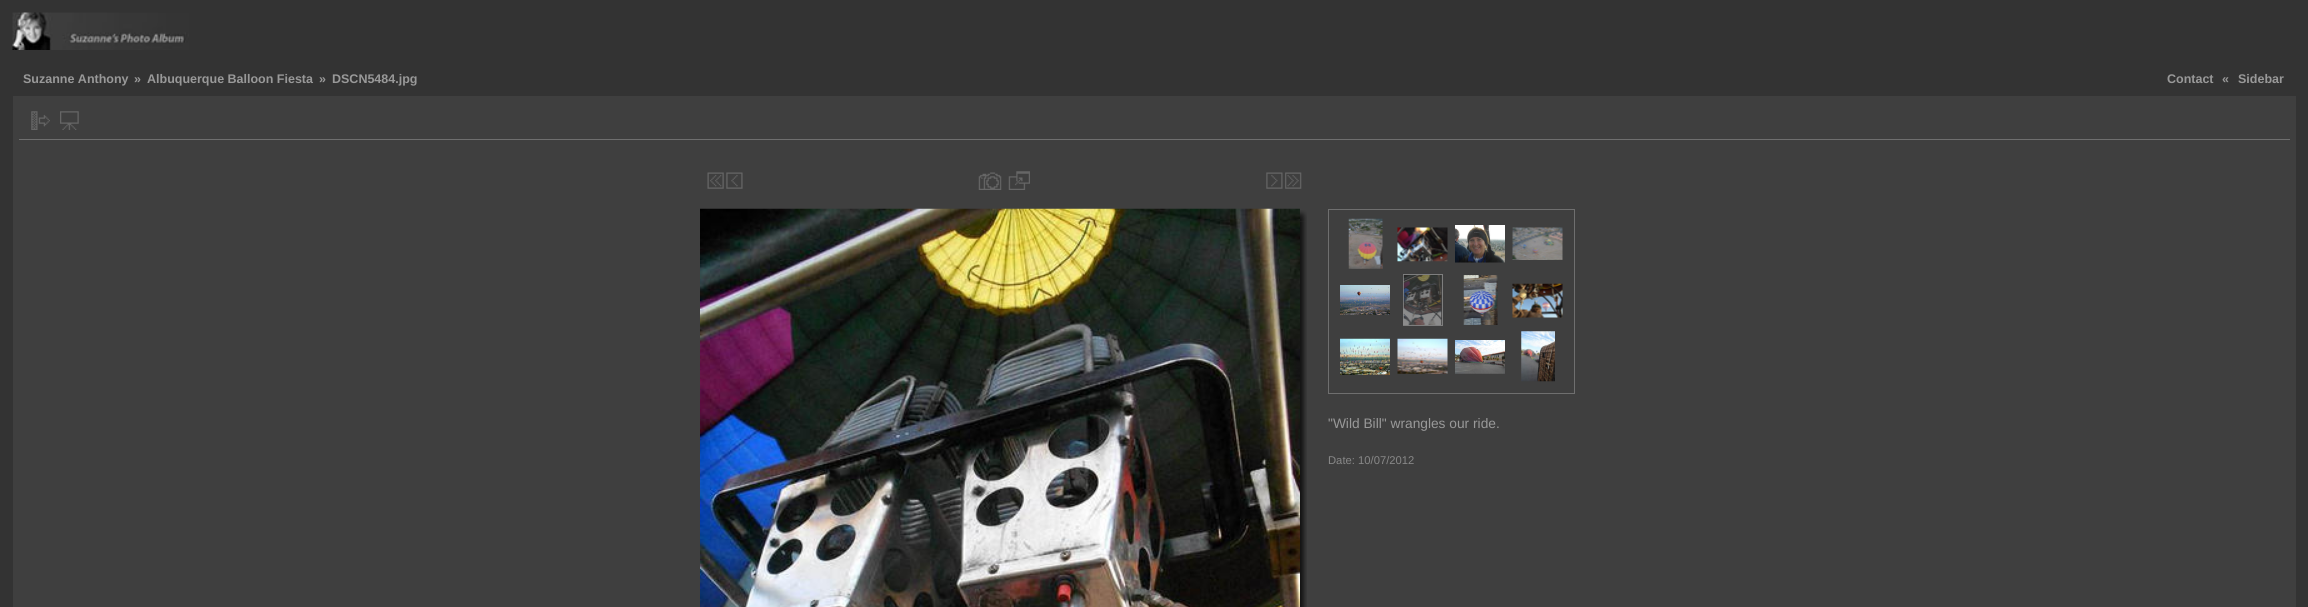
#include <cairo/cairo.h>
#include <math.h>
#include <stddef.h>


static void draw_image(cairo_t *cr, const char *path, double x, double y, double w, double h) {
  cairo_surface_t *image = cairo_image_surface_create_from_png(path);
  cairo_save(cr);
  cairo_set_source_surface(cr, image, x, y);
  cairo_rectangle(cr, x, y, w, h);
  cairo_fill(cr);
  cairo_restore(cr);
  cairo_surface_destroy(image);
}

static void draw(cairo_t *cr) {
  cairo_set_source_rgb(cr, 51 / 255.0, 51 / 255.0, 51 / 255.0);
  cairo_paint(cr);
  draw_image(cr, "images/1.png", 12, 12, 177, 38);
  cairo_set_source_rgb(cr, 63 / 255.0, 63 / 255.0, 63 / 255.0);
  cairo_rectangle(cr, 13, 96, 2283, 511);
  cairo_fill(cr);
  cairo_set_source_rgb(cr, 111 / 255.0, 111 / 255.0, 111 / 255.0);
  cairo_rectangle(cr, 19, 139, 2271, 1);
  cairo_fill(cr);
  draw_image(cr, "images/2.png", 31, 111, 19, 19);
  draw_image(cr, "images/3.png", 60, 111, 19, 19);
  draw_image(cr, "images/4.png", 707, 172, 17, 17);
  draw_image(cr, "images/5.png", 726, 172, 17, 17);
  draw_image(cr, "images/6.png", 978, 172, 24, 18);
  draw_image(cr, "images/7.png", 1008, 171, 22, 19);
  draw_image(cr, "images/8.png", 1266, 172, 17, 17);
  draw_image(cr, "images/9.png", 1285, 172, 17, 17);
  draw_image(cr, "images/10.png", 700, 208, 600, 399);
  draw_image(cr, "images/11.png", 1300, 210, 7, 12);
  draw_image(cr, "images/12.png", 1300, 221, 7, 386);
  cairo_rectangle(cr, 1328.5, 209.5, 246, 184);
  cairo_set_line_width(cr, 1);
  cairo_stroke(cr);
  draw_image(cr, "images/13.png", 1348, 218, 35, 51);
  draw_image(cr, "images/14.png", 1397, 227, 51, 35);
  draw_image(cr, "images/15.png", 1455, 225, 50, 38);
  draw_image(cr, "images/16.png", 1512, 227, 51, 33);
  draw_image(cr, "images/17.png", 1340, 285, 50, 30);
  cairo_rectangle(cr, 1403.5, 274.5, 39, 51);
  cairo_set_source_rgb(cr, 126 / 255.0, 126 / 255.0, 126 / 255.0);
  cairo_stroke(cr);
  draw_image(cr, "images/18.png", 1403, 275, 39, 50);
  draw_image(cr, "images/19.png", 1463, 275, 35, 50);
  draw_image(cr, "images/20.png", 1512, 283, 51, 35);
  draw_image(cr, "images/21.png", 1340, 338, 50, 37);
  draw_image(cr, "images/22.png", 1397, 338, 51, 36);
  draw_image(cr, "images/23.png", 1455, 340, 50, 34);
  draw_image(cr, "images/24.png", 1521, 331, 34, 51);
  cairo_select_font_face(cr, "Liberation Sans", CAIRO_FONT_SLANT_NORMAL, CAIRO_FONT_WEIGHT_BOLD);
  cairo_set_font_size(cr, 12.5);
  cairo_set_source_rgb(cr, 153 / 255.0, 153 / 255.0, 153 / 255.0);
  cairo_move_to(cr, 23, 83);
  cairo_show_text(cr, "Suzanne Anthony");
  cairo_move_to(cr, 134, 83);
  cairo_show_text(cr, "»");
  cairo_move_to(cr, 147, 83);
  cairo_show_text(cr, "Albuquerque Balloon Fiesta");
  cairo_move_to(cr, 319, 83);
  cairo_show_text(cr, "»");
  cairo_move_to(cr, 332, 83);
  cairo_show_text(cr, "DSCN5484.jpg");
  cairo_move_to(cr, 2167, 83);
  cairo_show_text(cr, "Contact");
  cairo_move_to(cr, 2222, 83);
  cairo_show_text(cr, "«");
  cairo_move_to(cr, 2238, 83);
  cairo_show_text(cr, "Sidebar");
  cairo_select_font_face(cr, "Liberation Sans", CAIRO_FONT_SLANT_NORMAL, CAIRO_FONT_WEIGHT_NORMAL);
  cairo_set_font_size(cr, 13.75);
  cairo_move_to(cr, 1328, 428);
  cairo_show_text(cr, "\"Wild Bill\" wrangles our ride.");
  cairo_set_font_size(cr, 11.25);
  cairo_set_source_rgb(cr, 136 / 255.0, 136 / 255.0, 136 / 255.0);
  cairo_move_to(cr, 1328, 464);
  cairo_show_text(cr, "Date: 10/07/2012");
}

int main(void) {
  cairo_surface_t *surface = cairo_image_surface_create(CAIRO_FORMAT_RGB24, 2308, 607);
  cairo_t *cr = cairo_create(surface);
  cairo_font_options_t *options = cairo_font_options_create();
  cairo_font_options_set_hint_metrics(options, CAIRO_HINT_METRICS_OFF);
  cairo_font_options_set_hint_style(options, CAIRO_HINT_STYLE_NONE);
  cairo_set_font_options(cr, options);
  cairo_set_miter_limit(cr, 4);
  draw(cr);
  cairo_surface_write_to_png(surface, "out.png");
  cairo_font_options_destroy(options);
  cairo_destroy(cr);
  cairo_surface_destroy(surface);
  return 0;
}
